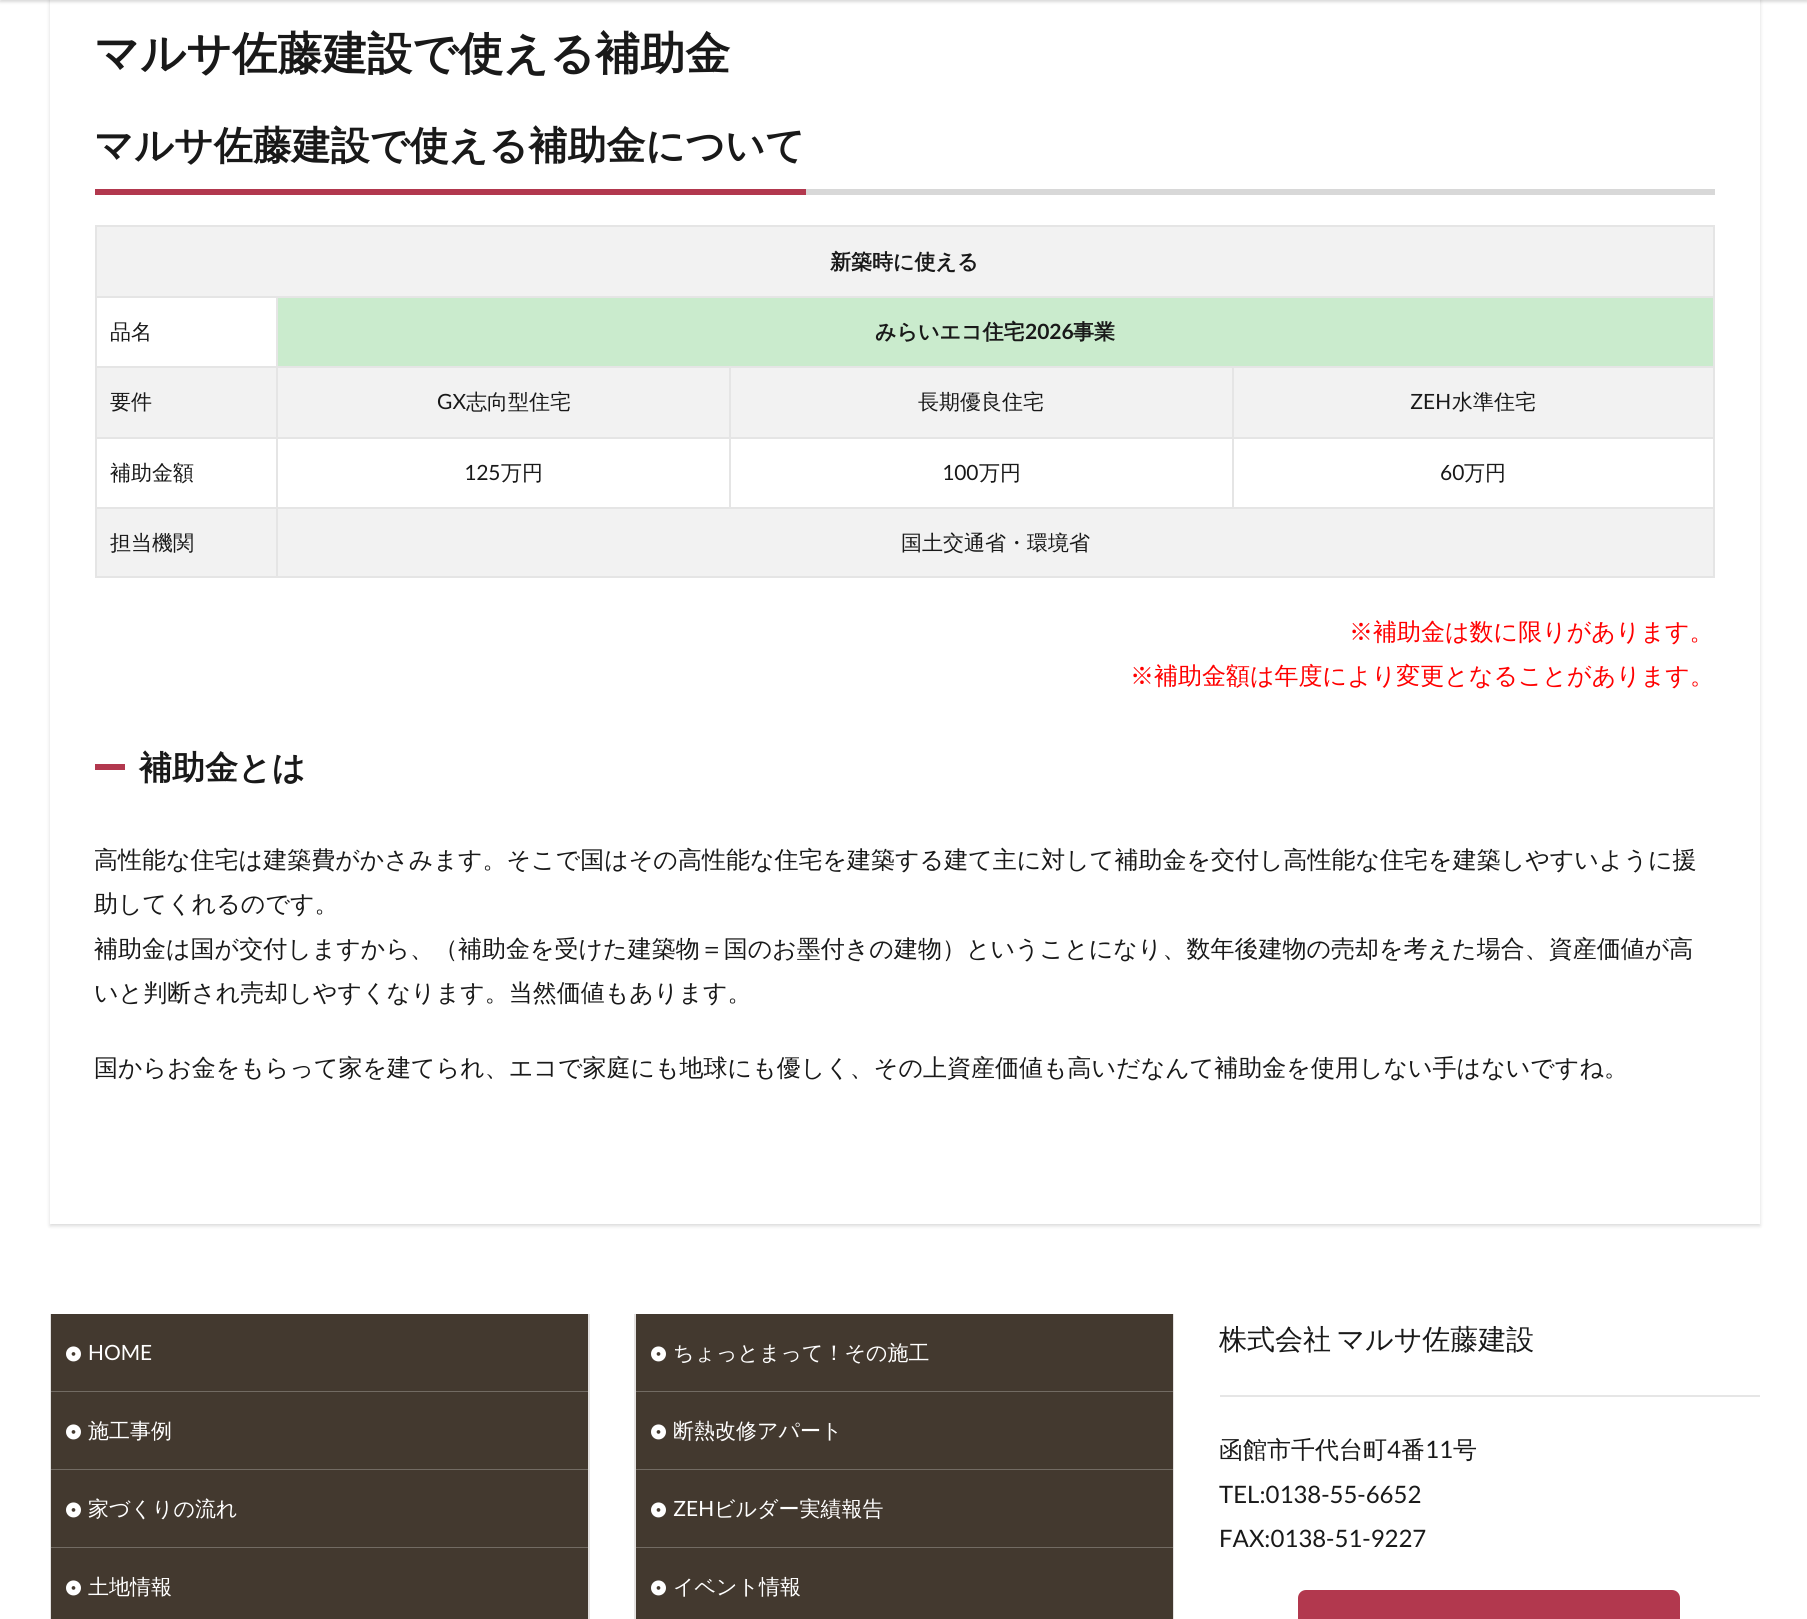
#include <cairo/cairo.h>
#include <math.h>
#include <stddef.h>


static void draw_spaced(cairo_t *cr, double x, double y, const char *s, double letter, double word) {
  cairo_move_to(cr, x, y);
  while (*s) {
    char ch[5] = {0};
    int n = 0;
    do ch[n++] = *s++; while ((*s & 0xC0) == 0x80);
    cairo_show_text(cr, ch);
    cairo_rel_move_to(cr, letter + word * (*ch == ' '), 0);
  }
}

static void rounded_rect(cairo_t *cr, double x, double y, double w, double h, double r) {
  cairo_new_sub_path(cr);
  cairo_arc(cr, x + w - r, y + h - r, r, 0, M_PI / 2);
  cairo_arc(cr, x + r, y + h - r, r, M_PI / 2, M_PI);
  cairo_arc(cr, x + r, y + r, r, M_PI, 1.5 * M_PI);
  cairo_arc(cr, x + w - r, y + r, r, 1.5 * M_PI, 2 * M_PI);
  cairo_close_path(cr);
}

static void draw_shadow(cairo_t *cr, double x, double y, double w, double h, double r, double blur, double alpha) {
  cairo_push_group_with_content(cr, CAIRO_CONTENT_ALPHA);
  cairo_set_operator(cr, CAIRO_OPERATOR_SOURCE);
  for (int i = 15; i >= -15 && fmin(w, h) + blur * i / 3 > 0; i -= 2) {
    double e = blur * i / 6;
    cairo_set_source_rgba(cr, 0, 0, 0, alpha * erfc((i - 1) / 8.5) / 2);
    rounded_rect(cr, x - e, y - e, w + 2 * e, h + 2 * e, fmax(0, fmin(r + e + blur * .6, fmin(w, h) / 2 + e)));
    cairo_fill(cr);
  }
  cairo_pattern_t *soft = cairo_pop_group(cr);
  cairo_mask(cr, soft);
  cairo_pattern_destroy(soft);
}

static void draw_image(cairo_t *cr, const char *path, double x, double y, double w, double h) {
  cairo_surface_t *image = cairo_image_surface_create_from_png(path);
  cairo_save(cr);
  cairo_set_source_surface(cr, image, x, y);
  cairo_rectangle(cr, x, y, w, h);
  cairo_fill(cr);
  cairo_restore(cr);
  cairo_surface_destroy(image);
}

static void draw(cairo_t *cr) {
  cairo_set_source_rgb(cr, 1, 1, 1);
  cairo_paint(cr);
  cairo_set_source_rgb(cr, 0, 0, 0);
  draw_shadow(cr, 50, -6, 1710, 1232, 0, 2, 0.15);
  cairo_set_source_rgb(cr, 1, 1, 1);
  cairo_rectangle(cr, 50, 0, 1710, 1224);
  cairo_fill(cr);
  cairo_set_source_rgb(cr, 0, 0, 0);
  draw_shadow(cr, 0, -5, 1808, 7, 0, 1.5, 0.15);
  cairo_set_source_rgb(cr, 178 / 255.0, 56 / 255.0, 78 / 255.0);
  cairo_rectangle(cr, 95, 189, 711, 6);
  cairo_fill(cr);
  cairo_set_source_rgb(cr, 216 / 255.0, 216 / 255.0, 216 / 255.0);
  cairo_rectangle(cr, 806, 189, 909, 6);
  cairo_fill(cr);
  cairo_set_source_rgb(cr, 229 / 255.0, 229 / 255.0, 229 / 255.0);
  cairo_rectangle(cr, 95, 225, 1620, 2);
  cairo_fill(cr);
  cairo_rectangle(cr, 95, 225, 2, 353);
  cairo_fill(cr);
  cairo_set_source_rgb(cr, 242 / 255.0, 242 / 255.0, 242 / 255.0);
  cairo_rectangle(cr, 97, 227, 1616, 69);
  cairo_fill(cr);
  cairo_set_source_rgb(cr, 229 / 255.0, 229 / 255.0, 229 / 255.0);
  cairo_rectangle(cr, 276, 296, 1439, 2);
  cairo_fill(cr);
  cairo_rectangle(cr, 1232, 366, 483, 2);
  cairo_fill(cr);
  cairo_rectangle(cr, 1232, 437, 483, 2);
  cairo_fill(cr);
  cairo_rectangle(cr, 276, 507, 1439, 2);
  cairo_fill(cr);
  cairo_rectangle(cr, 1232, 437, 2, 72);
  cairo_fill(cr);
  cairo_rectangle(cr, 729, 437, 504, 2);
  cairo_fill(cr);
  cairo_rectangle(cr, 1232, 366, 2, 72);
  cairo_fill(cr);
  cairo_rectangle(cr, 729, 366, 504, 2);
  cairo_fill(cr);
  cairo_rectangle(cr, 729, 437, 2, 72);
  cairo_fill(cr);
  cairo_rectangle(cr, 276, 437, 455, 2);
  cairo_fill(cr);
  cairo_rectangle(cr, 729, 366, 2, 72);
  cairo_fill(cr);
  cairo_rectangle(cr, 276, 366, 455, 2);
  cairo_fill(cr);
  cairo_rectangle(cr, 1713, 507, 2, 71);
  cairo_fill(cr);
  cairo_rectangle(cr, 276, 576, 1439, 2);
  cairo_fill(cr);
  cairo_rectangle(cr, 276, 507, 2, 71);
  cairo_fill(cr);
  cairo_rectangle(cr, 95, 507, 183, 2);
  cairo_fill(cr);
  cairo_rectangle(cr, 276, 437, 2, 72);
  cairo_fill(cr);
  cairo_rectangle(cr, 95, 437, 183, 2);
  cairo_fill(cr);
  cairo_rectangle(cr, 276, 366, 2, 72);
  cairo_fill(cr);
  cairo_rectangle(cr, 95, 366, 183, 2);
  cairo_fill(cr);
  cairo_rectangle(cr, 276, 296, 2, 72);
  cairo_fill(cr);
  cairo_rectangle(cr, 95, 296, 183, 2);
  cairo_fill(cr);
  cairo_set_source_rgb(cr, 202 / 255.0, 235 / 255.0, 205 / 255.0);
  cairo_rectangle(cr, 278, 298, 1435, 68);
  cairo_fill(cr);
  cairo_set_source_rgb(cr, 229 / 255.0, 229 / 255.0, 229 / 255.0);
  cairo_rectangle(cr, 1713, 437, 2, 72);
  cairo_fill(cr);
  cairo_rectangle(cr, 1713, 366, 2, 72);
  cairo_fill(cr);
  cairo_rectangle(cr, 1713, 225, 2, 143);
  cairo_fill(cr);
  cairo_set_source_rgb(cr, 242 / 255.0, 242 / 255.0, 242 / 255.0);
  cairo_rectangle(cr, 97, 368, 179, 69);
  cairo_fill(cr);
  cairo_rectangle(cr, 278, 368, 451, 69);
  cairo_fill(cr);
  cairo_rectangle(cr, 731, 368, 501, 69);
  cairo_fill(cr);
  cairo_rectangle(cr, 1234, 368, 479, 69);
  cairo_fill(cr);
  cairo_rectangle(cr, 97, 509, 179, 67);
  cairo_fill(cr);
  cairo_set_source_rgb(cr, 229 / 255.0, 229 / 255.0, 229 / 255.0);
  cairo_rectangle(cr, 95, 576, 183, 2);
  cairo_fill(cr);
  cairo_set_source_rgb(cr, 242 / 255.0, 242 / 255.0, 242 / 255.0);
  cairo_rectangle(cr, 278, 509, 1435, 67);
  cairo_fill(cr);
  cairo_set_source_rgb(cr, 178 / 255.0, 56 / 255.0, 78 / 255.0);
  cairo_rectangle(cr, 95, 764, 30, 6);
  cairo_fill(cr);
  cairo_set_source_rgb(cr, 227 / 255.0, 225 / 255.0, 224 / 255.0);
  cairo_new_path(cr);
  cairo_move_to(cr, 590, 1314);
  cairo_line_to(cr, 590, 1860);
  cairo_line_to(cr, 588, 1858);
  cairo_line_to(cr, 588, 1314);
  cairo_close_path(cr);
  cairo_fill(cr);
  cairo_new_path(cr);
  cairo_move_to(cr, 50, 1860);
  cairo_line_to(cr, 50, 1314);
  cairo_line_to(cr, 51, 1314);
  cairo_line_to(cr, 51, 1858);
  cairo_close_path(cr);
  cairo_fill(cr);
  cairo_set_source_rgb(cr, 67 / 255.0, 57 / 255.0, 47 / 255.0);
  cairo_rectangle(cr, 51, 1314, 537, 77);
  cairo_fill(cr);
  draw_image(cr, "images/1.png", 66, 1346, 15, 16);
  cairo_set_source_rgb(cr, 114 / 255.0, 107 / 255.0, 99 / 255.0);
  cairo_rectangle(cr, 51, 1391, 537, 1);
  cairo_fill(cr);
  cairo_set_source_rgb(cr, 67 / 255.0, 57 / 255.0, 47 / 255.0);
  cairo_rectangle(cr, 51, 1392, 537, 77);
  cairo_fill(cr);
  draw_image(cr, "images/1.png", 66, 1424, 15, 16);
  cairo_set_source_rgb(cr, 114 / 255.0, 107 / 255.0, 99 / 255.0);
  cairo_rectangle(cr, 51, 1469, 537, 1);
  cairo_fill(cr);
  cairo_set_source_rgb(cr, 67 / 255.0, 57 / 255.0, 47 / 255.0);
  cairo_rectangle(cr, 51, 1470, 537, 77);
  cairo_fill(cr);
  draw_image(cr, "images/1.png", 66, 1502, 15, 16);
  cairo_set_source_rgb(cr, 114 / 255.0, 107 / 255.0, 99 / 255.0);
  cairo_rectangle(cr, 51, 1547, 537, 1);
  cairo_fill(cr);
  cairo_set_source_rgb(cr, 67 / 255.0, 57 / 255.0, 47 / 255.0);
  cairo_rectangle(cr, 51, 1548, 537, 71);
  cairo_fill(cr);
  draw_image(cr, "images/1.png", 66, 1580, 15, 16);
  cairo_set_source_rgb(cr, 227 / 255.0, 225 / 255.0, 224 / 255.0);
  cairo_new_path(cr);
  cairo_move_to(cr, 1174, 1314);
  cairo_line_to(cr, 1174, 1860);
  cairo_line_to(cr, 1173, 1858);
  cairo_line_to(cr, 1173, 1314);
  cairo_close_path(cr);
  cairo_fill(cr);
  cairo_new_path(cr);
  cairo_move_to(cr, 634, 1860);
  cairo_line_to(cr, 634, 1314);
  cairo_line_to(cr, 636, 1314);
  cairo_line_to(cr, 636, 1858);
  cairo_close_path(cr);
  cairo_fill(cr);
  cairo_set_source_rgb(cr, 67 / 255.0, 57 / 255.0, 47 / 255.0);
  cairo_rectangle(cr, 636, 1314, 537, 77);
  cairo_fill(cr);
  draw_image(cr, "images/1.png", 651, 1346, 15, 16);
  cairo_set_source_rgb(cr, 114 / 255.0, 107 / 255.0, 99 / 255.0);
  cairo_rectangle(cr, 636, 1391, 537, 1);
  cairo_fill(cr);
  cairo_set_source_rgb(cr, 67 / 255.0, 57 / 255.0, 47 / 255.0);
  cairo_rectangle(cr, 636, 1392, 537, 77);
  cairo_fill(cr);
  draw_image(cr, "images/1.png", 651, 1424, 15, 16);
  cairo_set_source_rgb(cr, 114 / 255.0, 107 / 255.0, 99 / 255.0);
  cairo_rectangle(cr, 636, 1469, 537, 1);
  cairo_fill(cr);
  cairo_set_source_rgb(cr, 67 / 255.0, 57 / 255.0, 47 / 255.0);
  cairo_rectangle(cr, 636, 1470, 537, 77);
  cairo_fill(cr);
  draw_image(cr, "images/1.png", 651, 1502, 15, 16);
  cairo_set_source_rgb(cr, 114 / 255.0, 107 / 255.0, 99 / 255.0);
  cairo_rectangle(cr, 636, 1547, 537, 1);
  cairo_fill(cr);
  cairo_set_source_rgb(cr, 67 / 255.0, 57 / 255.0, 47 / 255.0);
  cairo_rectangle(cr, 636, 1548, 537, 71);
  cairo_fill(cr);
  draw_image(cr, "images/1.png", 651, 1580, 15, 16);
  cairo_set_source_rgb(cr, 230 / 255.0, 230 / 255.0, 230 / 255.0);
  cairo_rectangle(cr, 1220, 1395, 540, 2);
  cairo_fill(cr);
  cairo_set_source_rgb(cr, 178 / 255.0, 56 / 255.0, 78 / 255.0);
  rounded_rect(cr, 1298, 1590, 382, 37, 8);
  cairo_fill(cr);
  cairo_select_font_face(cr, "WenQuanYi Zen Hei", CAIRO_FONT_SLANT_NORMAL, CAIRO_FONT_WEIGHT_BOLD);
  cairo_set_font_size(cr, 45);
  cairo_set_source_rgb(cr, 25 / 255.0, 25 / 255.0, 25 / 255.0);
  cairo_move_to(cr, 94, 69);
  cairo_show_text(cr, "マルサ佐藤建設で使える補助金");
  cairo_set_font_size(cr, 39);
  cairo_move_to(cr, 94, 159);
  cairo_show_text(cr, "マルサ佐藤建設で使える補助金について");
  cairo_set_font_size(cr, 21);
  cairo_move_to(cr, 830, 269);
  cairo_show_text(cr, "新築時に使える");
  cairo_select_font_face(cr, "WenQuanYi Zen Hei Medium", CAIRO_FONT_SLANT_NORMAL, CAIRO_FONT_WEIGHT_NORMAL);
  cairo_move_to(cr, 110, 339);
  cairo_show_text(cr, "品名");
  cairo_select_font_face(cr, "WenQuanYi Zen Hei", CAIRO_FONT_SLANT_NORMAL, CAIRO_FONT_WEIGHT_BOLD);
  cairo_move_to(cr, 875, 339);
  cairo_show_text(cr, "みらいエコ住宅");
  cairo_select_font_face(cr, "Lato", CAIRO_FONT_SLANT_NORMAL, CAIRO_FONT_WEIGHT_BOLD);
  cairo_move_to(cr, 1025, 339);
  cairo_show_text(cr, "2026");
  cairo_select_font_face(cr, "WenQuanYi Zen Hei", CAIRO_FONT_SLANT_NORMAL, CAIRO_FONT_WEIGHT_BOLD);
  cairo_move_to(cr, 1073, 339);
  cairo_show_text(cr, "事業");
  cairo_select_font_face(cr, "WenQuanYi Zen Hei Medium", CAIRO_FONT_SLANT_NORMAL, CAIRO_FONT_WEIGHT_NORMAL);
  cairo_move_to(cr, 110, 409);
  cairo_show_text(cr, "要件");
  cairo_select_font_face(cr, "Lato", CAIRO_FONT_SLANT_NORMAL, CAIRO_FONT_WEIGHT_NORMAL);
  cairo_move_to(cr, 437, 409);
  cairo_show_text(cr, "GX");
  cairo_select_font_face(cr, "WenQuanYi Zen Hei Medium", CAIRO_FONT_SLANT_NORMAL, CAIRO_FONT_WEIGHT_NORMAL);
  cairo_move_to(cr, 466, 409);
  cairo_show_text(cr, "志向型住宅");
  cairo_move_to(cr, 918, 409);
  cairo_show_text(cr, "長期優良住宅");
  cairo_select_font_face(cr, "Lato", CAIRO_FONT_SLANT_NORMAL, CAIRO_FONT_WEIGHT_NORMAL);
  cairo_move_to(cr, 1410, 409);
  cairo_show_text(cr, "ZEH");
  cairo_select_font_face(cr, "WenQuanYi Zen Hei Medium", CAIRO_FONT_SLANT_NORMAL, CAIRO_FONT_WEIGHT_NORMAL);
  cairo_move_to(cr, 1452, 409);
  cairo_show_text(cr, "水準住宅");
  cairo_move_to(cr, 110, 480);
  cairo_show_text(cr, "補助金額");
  cairo_select_font_face(cr, "Lato", CAIRO_FONT_SLANT_NORMAL, CAIRO_FONT_WEIGHT_NORMAL);
  cairo_move_to(cr, 464, 480);
  cairo_show_text(cr, "125");
  cairo_select_font_face(cr, "WenQuanYi Zen Hei Medium", CAIRO_FONT_SLANT_NORMAL, CAIRO_FONT_WEIGHT_NORMAL);
  cairo_move_to(cr, 501, 480);
  cairo_show_text(cr, "万円");
  cairo_select_font_face(cr, "Lato", CAIRO_FONT_SLANT_NORMAL, CAIRO_FONT_WEIGHT_NORMAL);
  cairo_move_to(cr, 942, 480);
  cairo_show_text(cr, "100");
  cairo_select_font_face(cr, "WenQuanYi Zen Hei Medium", CAIRO_FONT_SLANT_NORMAL, CAIRO_FONT_WEIGHT_NORMAL);
  cairo_move_to(cr, 979, 480);
  cairo_show_text(cr, "万円");
  cairo_select_font_face(cr, "Lato", CAIRO_FONT_SLANT_NORMAL, CAIRO_FONT_WEIGHT_NORMAL);
  cairo_move_to(cr, 1440, 480);
  cairo_show_text(cr, "60");
  cairo_select_font_face(cr, "WenQuanYi Zen Hei Medium", CAIRO_FONT_SLANT_NORMAL, CAIRO_FONT_WEIGHT_NORMAL);
  cairo_move_to(cr, 1464, 480);
  cairo_show_text(cr, "万円");
  cairo_move_to(cr, 110, 550);
  cairo_show_text(cr, "担当機関");
  cairo_move_to(cr, 901, 550);
  cairo_show_text(cr, "国土交通省・環境省");
  cairo_set_font_size(cr, 24);
  cairo_set_source_rgb(cr, 1, 0, 0);
  cairo_move_to(cr, 1349, 640);
  cairo_show_text(cr, "※補助金は数に限りがあります。");
  cairo_move_to(cr, 1130, 684);
  cairo_show_text(cr, "※補助金額は年度により変更となることがあります。");
  cairo_select_font_face(cr, "WenQuanYi Zen Hei", CAIRO_FONT_SLANT_NORMAL, CAIRO_FONT_WEIGHT_BOLD);
  cairo_set_font_size(cr, 33);
  cairo_set_source_rgb(cr, 25 / 255.0, 25 / 255.0, 25 / 255.0);
  cairo_move_to(cr, 139, 779);
  cairo_show_text(cr, "補助金とは");
  cairo_select_font_face(cr, "WenQuanYi Zen Hei Medium", CAIRO_FONT_SLANT_NORMAL, CAIRO_FONT_WEIGHT_NORMAL);
  cairo_set_font_size(cr, 24);
  cairo_move_to(cr, 94, 868);
  cairo_show_text(cr, "高性能な住宅は建築費がかさみます。そこで国はその高性能な住宅を建築する建て主に対して補助金を交付し高性能な住宅を建築しやすいように援");
  cairo_move_to(cr, 94, 912);
  cairo_show_text(cr, "助してくれるのです。");
  cairo_move_to(cr, 94, 957);
  cairo_show_text(cr, "補助金は国が交付しますから、（補助金を受けた建築物＝国のお墨付きの建物）ということになり、数年後建物の売却を考えた場合、資産価値が高");
  cairo_move_to(cr, 94, 1001);
  cairo_show_text(cr, "いと判断され売却しやすくなります。当然価値もあります。");
  cairo_move_to(cr, 94, 1076);
  cairo_show_text(cr, "国からお金をもらって家を建てられ、エコで家庭にも地球にも優しく、その上資産価値も高いだなんて補助金を使用しない手はないですね。");
  cairo_select_font_face(cr, "Lato", CAIRO_FONT_SLANT_NORMAL, CAIRO_FONT_WEIGHT_NORMAL);
  cairo_set_font_size(cr, 21);
  cairo_set_source_rgb(cr, 1, 1, 1);
  cairo_move_to(cr, 88, 1360);
  cairo_show_text(cr, "HOME");
  cairo_select_font_face(cr, "WenQuanYi Zen Hei Medium", CAIRO_FONT_SLANT_NORMAL, CAIRO_FONT_WEIGHT_NORMAL);
  cairo_move_to(cr, 88, 1438);
  cairo_show_text(cr, "施工事例");
  cairo_move_to(cr, 88, 1516);
  cairo_show_text(cr, "家づくりの流れ");
  cairo_move_to(cr, 88, 1594);
  cairo_show_text(cr, "土地情報");
  cairo_move_to(cr, 673, 1360);
  cairo_show_text(cr, "ちょっとまって！その施工");
  cairo_move_to(cr, 673, 1438);
  cairo_show_text(cr, "断熱改修アパート");
  cairo_select_font_face(cr, "Lato", CAIRO_FONT_SLANT_NORMAL, CAIRO_FONT_WEIGHT_NORMAL);
  cairo_move_to(cr, 673, 1516);
  cairo_show_text(cr, "ZEH");
  cairo_select_font_face(cr, "WenQuanYi Zen Hei Medium", CAIRO_FONT_SLANT_NORMAL, CAIRO_FONT_WEIGHT_NORMAL);
  cairo_move_to(cr, 714, 1516);
  cairo_show_text(cr, "ビルダー実績報告");
  cairo_move_to(cr, 673, 1594);
  cairo_show_text(cr, "イベント情報");
  cairo_set_font_size(cr, 28);
  cairo_set_source_rgb(cr, 25 / 255.0, 25 / 255.0, 25 / 255.0);
  draw_spaced(cr, 1219, 1349, "株式会社 マルサ佐藤建設", 0, -3);
  cairo_set_font_size(cr, 24);
  cairo_move_to(cr, 1219, 1458);
  cairo_show_text(cr, "函館市千代台町");
  cairo_select_font_face(cr, "Lato", CAIRO_FONT_SLANT_NORMAL, CAIRO_FONT_WEIGHT_NORMAL);
  cairo_move_to(cr, 1387, 1458);
  cairo_show_text(cr, "4");
  cairo_select_font_face(cr, "WenQuanYi Zen Hei Medium", CAIRO_FONT_SLANT_NORMAL, CAIRO_FONT_WEIGHT_NORMAL);
  cairo_move_to(cr, 1401, 1458);
  cairo_show_text(cr, "番");
  cairo_select_font_face(cr, "Lato", CAIRO_FONT_SLANT_NORMAL, CAIRO_FONT_WEIGHT_NORMAL);
  cairo_move_to(cr, 1425, 1458);
  cairo_show_text(cr, "11");
  cairo_select_font_face(cr, "WenQuanYi Zen Hei Medium", CAIRO_FONT_SLANT_NORMAL, CAIRO_FONT_WEIGHT_NORMAL);
  cairo_move_to(cr, 1453, 1458);
  cairo_show_text(cr, "号");
  cairo_select_font_face(cr, "Lato", CAIRO_FONT_SLANT_NORMAL, CAIRO_FONT_WEIGHT_NORMAL);
  cairo_move_to(cr, 1219, 1503);
  cairo_show_text(cr, "TEL:0138-55-6652");
  cairo_move_to(cr, 1219, 1547);
  cairo_show_text(cr, "FAX:0138-51-9227");
}

int main(void) {
  cairo_surface_t *surface = cairo_image_surface_create(CAIRO_FORMAT_RGB24, 1807, 1619);
  cairo_t *cr = cairo_create(surface);
  cairo_font_options_t *options = cairo_font_options_create();
  cairo_font_options_set_hint_metrics(options, CAIRO_HINT_METRICS_OFF);
  cairo_font_options_set_hint_style(options, CAIRO_HINT_STYLE_NONE);
  cairo_set_font_options(cr, options);
  cairo_set_miter_limit(cr, 4);
  draw(cr);
  cairo_surface_write_to_png(surface, "out.png");
  cairo_font_options_destroy(options);
  cairo_destroy(cr);
  cairo_surface_destroy(surface);
  return 0;
}
